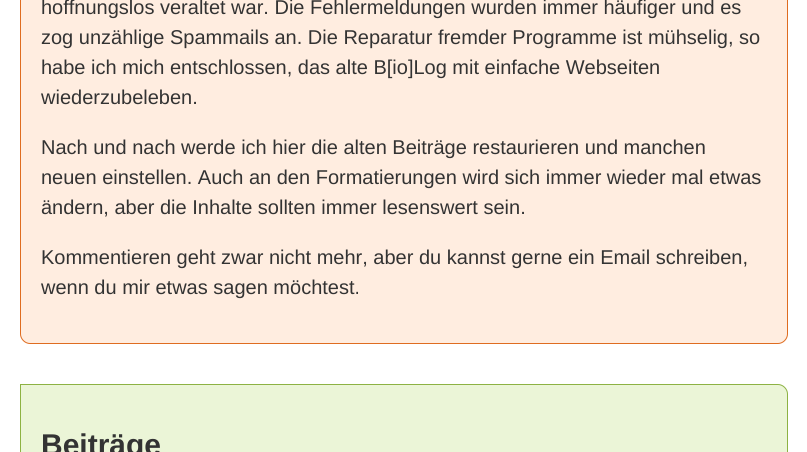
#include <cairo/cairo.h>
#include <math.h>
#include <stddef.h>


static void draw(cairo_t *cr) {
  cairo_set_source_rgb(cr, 1, 1, 1);
  cairo_paint(cr);
  cairo_set_source_rgb(cr, 1, 237 / 255.0, 224 / 255.0);
  cairo_new_path(cr);
  cairo_move_to(cr, 20.5, -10.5);
  cairo_line_to(cr, 778, -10.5);
  cairo_curve_to(cr, 783, -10.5, 787.5, -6, 787.5, -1);
  cairo_line_to(cr, 787.5, 334);
  cairo_curve_to(cr, 787.5, 339, 783, 343.5, 778, 343.5);
  cairo_line_to(cr, 30, 343.5);
  cairo_curve_to(cr, 25, 343.5, 20.5, 339, 20.5, 334);
  cairo_close_path(cr);
  cairo_fill_preserve(cr);
  cairo_set_source_rgb(cr, 223 / 255.0, 108 / 255.0, 32 / 255.0);
  cairo_set_line_width(cr, 1);
  cairo_stroke(cr);
  cairo_set_source_rgb(cr, 235 / 255.0, 245 / 255.0, 215 / 255.0);
  cairo_new_path(cr);
  cairo_move_to(cr, 20.5, 384.5);
  cairo_line_to(cr, 778, 384.5);
  cairo_curve_to(cr, 783, 384.5, 787.5, 389, 787.5, 394);
  cairo_line_to(cr, 787.5, 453);
  cairo_curve_to(cr, 787.5, 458, 783, 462.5, 778, 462.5);
  cairo_line_to(cr, 30, 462.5);
  cairo_curve_to(cr, 25, 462.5, 20.5, 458, 20.5, 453);
  cairo_close_path(cr);
  cairo_fill_preserve(cr);
  cairo_set_source_rgb(cr, 141 / 255.0, 178 / 255.0, 67 / 255.0);
  cairo_stroke(cr);
  cairo_select_font_face(cr, "Liberation Sans", CAIRO_FONT_SLANT_NORMAL, CAIRO_FONT_WEIGHT_NORMAL);
  cairo_set_font_size(cr, 20);
  cairo_set_source_rgb(cr, 51 / 255.0, 51 / 255.0, 51 / 255.0);
  cairo_move_to(cr, 41, 14);
  cairo_show_text(cr, "hoffnungslos veraltet war. Die Fehlermeldungen wurden immer häufiger und es");
  cairo_move_to(cr, 41, 44);
  cairo_show_text(cr, "zog unzählige Spammails an. Die Reparatur fremder Programme ist mühselig, so");
  cairo_move_to(cr, 41, 74);
  cairo_show_text(cr, "habe ich mich entschlossen, das alte B[io]Log mit einfache Webseiten");
  cairo_move_to(cr, 41, 104);
  cairo_show_text(cr, "wiederzubeleben.");
  cairo_move_to(cr, 41, 154);
  cairo_show_text(cr, "Nach und nach werde ich hier die alten Beiträge restaurieren und manchen");
  cairo_move_to(cr, 41, 184);
  cairo_show_text(cr, "neuen einstellen. Auch an den Formatierungen wird sich immer wieder mal etwas");
  cairo_move_to(cr, 41, 214);
  cairo_show_text(cr, "ändern, aber die Inhalte sollten immer lesenswert sein.");
  cairo_move_to(cr, 41, 264);
  cairo_show_text(cr, "Kommentieren geht zwar nicht mehr, aber du kannst gerne ein Email schreiben,");
  cairo_move_to(cr, 41, 294);
  cairo_show_text(cr, "wenn du mir etwas sagen möchtest.");
  cairo_select_font_face(cr, "Liberation Sans", CAIRO_FONT_SLANT_NORMAL, CAIRO_FONT_WEIGHT_BOLD);
  cairo_set_font_size(cr, 30);
  cairo_move_to(cr, 41, 455);
  cairo_show_text(cr, "Beiträge");
}

int main(void) {
  cairo_surface_t *surface = cairo_image_surface_create(CAIRO_FORMAT_RGB24, 807, 452);
  cairo_t *cr = cairo_create(surface);
  cairo_font_options_t *options = cairo_font_options_create();
  cairo_font_options_set_hint_metrics(options, CAIRO_HINT_METRICS_OFF);
  cairo_font_options_set_hint_style(options, CAIRO_HINT_STYLE_NONE);
  cairo_set_font_options(cr, options);
  cairo_set_miter_limit(cr, 4);
  draw(cr);
  cairo_surface_write_to_png(surface, "out.png");
  cairo_font_options_destroy(options);
  cairo_destroy(cr);
  cairo_surface_destroy(surface);
  return 0;
}
